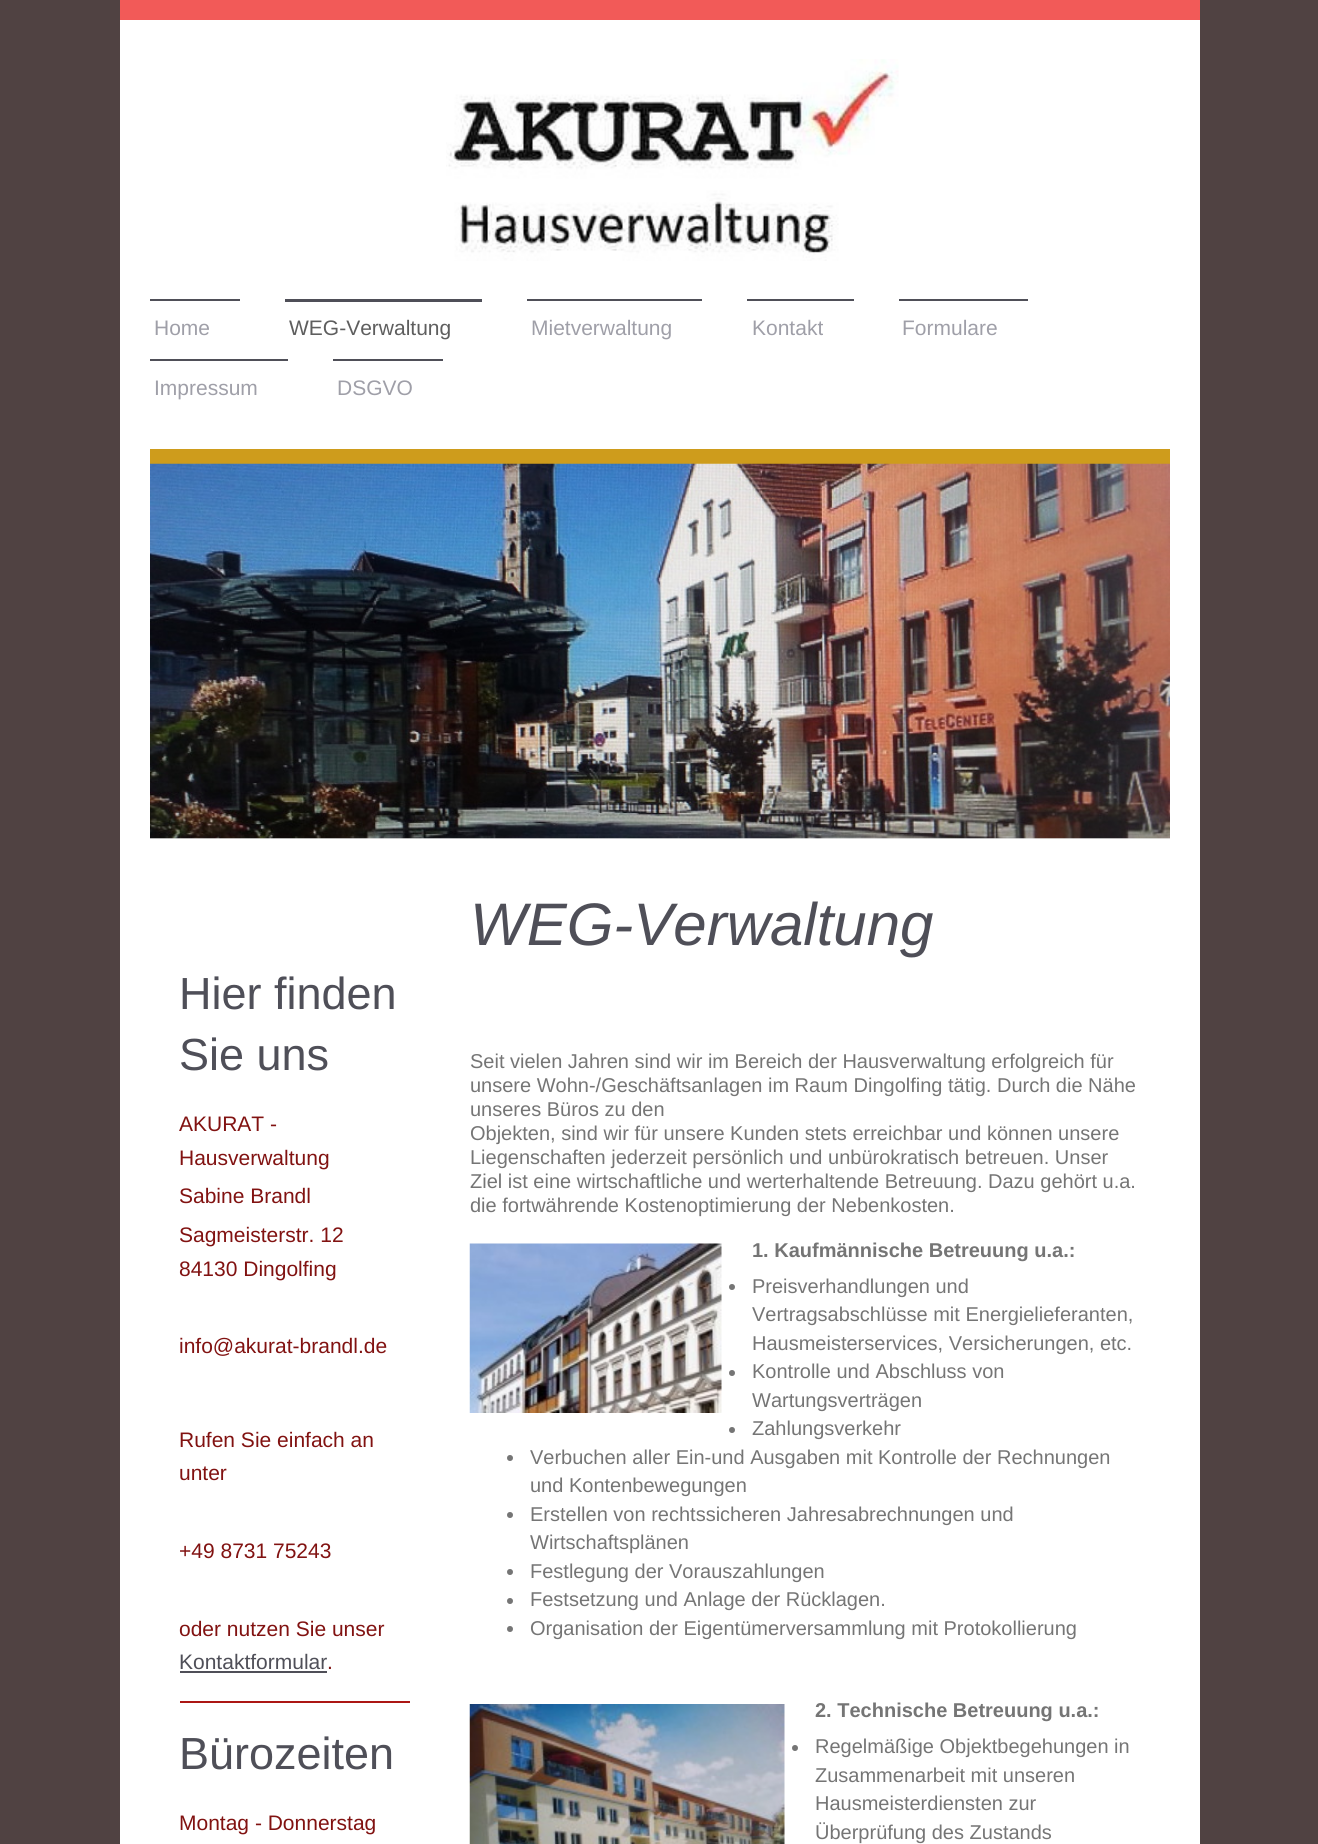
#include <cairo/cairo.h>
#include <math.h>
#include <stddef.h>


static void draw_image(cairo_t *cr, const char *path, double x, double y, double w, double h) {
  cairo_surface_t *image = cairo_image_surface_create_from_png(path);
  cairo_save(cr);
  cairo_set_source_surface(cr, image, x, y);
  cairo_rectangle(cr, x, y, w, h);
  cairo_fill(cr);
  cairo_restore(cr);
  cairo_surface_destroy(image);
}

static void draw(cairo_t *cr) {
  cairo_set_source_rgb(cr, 80 / 255.0, 66 / 255.0, 66 / 255.0);
  cairo_paint(cr);
  cairo_set_source_rgb(cr, 1, 1, 1);
  cairo_rectangle(cr, 120, 20, 1080, 1824);
  cairo_fill(cr);
  cairo_set_source_rgb(cr, 242 / 255.0, 90 / 255.0, 88 / 255.0);
  cairo_rectangle(cr, 120, 0, 1080, 20);
  cairo_fill(cr);
  draw_image(cr, "images/1.png", 446, 59, 453, 202);
  cairo_set_source_rgb(cr, 79 / 255.0, 79 / 255.0, 88 / 255.0);
  cairo_rectangle(cr, 150, 299, 90, 2);
  cairo_fill(cr);
  cairo_rectangle(cr, 285, 299, 197, 3);
  cairo_fill(cr);
  cairo_rectangle(cr, 527, 299, 175, 2);
  cairo_fill(cr);
  cairo_rectangle(cr, 747, 299, 107, 2);
  cairo_fill(cr);
  cairo_rectangle(cr, 899, 299, 129, 2);
  cairo_fill(cr);
  cairo_rectangle(cr, 150, 359, 138, 2);
  cairo_fill(cr);
  cairo_rectangle(cr, 333, 359, 110, 2);
  cairo_fill(cr);
  cairo_set_source_rgb(cr, 206 / 255.0, 156 / 255.0, 28 / 255.0);
  cairo_rectangle(cr, 150, 449, 1020, 15);
  cairo_fill(cr);
  cairo_set_source_rgb(cr, 238 / 255.0, 238 / 255.0, 238 / 255.0);
  cairo_rectangle(cr, 150, 838, 1020, 1);
  cairo_fill(cr);
  draw_image(cr, "images/2.png", 150, 463, 1020, 376);
  cairo_set_source_rgb(cr, 79 / 255.0, 79 / 255.0, 88 / 255.0);
  cairo_rectangle(cr, 180, 1671, 147, 2);
  cairo_fill(cr);
  cairo_set_source_rgb(cr, 172 / 255.0, 22 / 255.0, 20 / 255.0);
  cairo_rectangle(cr, 180, 1701, 230, 2);
  cairo_fill(cr);
  cairo_set_source_rgb(cr, 117 / 255.0, 117 / 255.0, 117 / 255.0);
  cairo_arc(cr, 732, 1287, 3, 0, 2 * M_PI);
  cairo_fill(cr);
  cairo_arc(cr, 732, 1373, 3, 0, 2 * M_PI);
  cairo_fill(cr);
  cairo_arc(cr, 732, 1430, 3, 0, 2 * M_PI);
  cairo_fill(cr);
  cairo_arc(cr, 510, 1458, 3, 0, 2 * M_PI);
  cairo_fill(cr);
  cairo_arc(cr, 510, 1515, 3, 0, 2 * M_PI);
  cairo_fill(cr);
  cairo_arc(cr, 510, 1572, 3, 0, 2 * M_PI);
  cairo_fill(cr);
  cairo_arc(cr, 510, 1601, 3, 0, 2 * M_PI);
  cairo_fill(cr);
  cairo_arc(cr, 510, 1629, 3, 0, 2 * M_PI);
  cairo_fill(cr);
  draw_image(cr, "images/3.png", 469, 1243, 253, 170);
  draw_image(cr, "images/4.png", 469, 1704, 316, 140);
  cairo_arc(cr, 795, 1748, 3, 0, 2 * M_PI);
  cairo_fill(cr);
  cairo_select_font_face(cr, "Liberation Sans", CAIRO_FONT_SLANT_NORMAL, CAIRO_FONT_WEIGHT_NORMAL);
  cairo_set_font_size(cr, 21);
  cairo_set_source_rgb(cr, 159 / 255.0, 159 / 255.0, 168 / 255.0);
  cairo_move_to(cr, 154, 335);
  cairo_show_text(cr, "Home");
  cairo_set_source_rgb(cr, 94 / 255.0, 94 / 255.0, 94 / 255.0);
  cairo_move_to(cr, 289, 335);
  cairo_show_text(cr, "WEG-Verwaltung");
  cairo_set_source_rgb(cr, 159 / 255.0, 159 / 255.0, 168 / 255.0);
  cairo_move_to(cr, 531, 335);
  cairo_show_text(cr, "Mietverwaltung");
  cairo_move_to(cr, 752, 335);
  cairo_show_text(cr, "Kontakt");
  cairo_move_to(cr, 902, 335);
  cairo_show_text(cr, "Formulare");
  cairo_move_to(cr, 154, 395);
  cairo_show_text(cr, "Impressum");
  cairo_move_to(cr, 337, 395);
  cairo_show_text(cr, "DSGVO");
  cairo_set_font_size(cr, 45);
  cairo_set_source_rgb(cr, 79 / 255.0, 79 / 255.0, 88 / 255.0);
  cairo_move_to(cr, 179, 1009);
  cairo_show_text(cr, "Hier finden");
  cairo_move_to(cr, 179, 1070);
  cairo_show_text(cr, "Sie uns");
  cairo_set_font_size(cr, 21);
  cairo_set_source_rgb(cr, 129 / 255.0, 18 / 255.0, 17 / 255.0);
  cairo_move_to(cr, 179, 1131);
  cairo_show_text(cr, "AKURAT -");
  cairo_move_to(cr, 179, 1165);
  cairo_show_text(cr, "Hausverwaltung");
  cairo_move_to(cr, 179, 1203);
  cairo_show_text(cr, "Sabine Brandl");
  cairo_move_to(cr, 179, 1242);
  cairo_show_text(cr, "Sagmeisterstr. 12");
  cairo_move_to(cr, 179, 1276);
  cairo_show_text(cr, "84130 Dingolfing");
  cairo_move_to(cr, 179, 1353);
  cairo_show_text(cr, "info@akurat-brandl.de");
  cairo_move_to(cr, 179, 1447);
  cairo_show_text(cr, "Rufen Sie einfach an");
  cairo_move_to(cr, 179, 1480);
  cairo_show_text(cr, "unter");
  cairo_move_to(cr, 179, 1558);
  cairo_show_text(cr, "+49 8731 75243");
  cairo_move_to(cr, 179, 1636);
  cairo_show_text(cr, "oder nutzen Sie unser");
  cairo_set_source_rgb(cr, 79 / 255.0, 79 / 255.0, 88 / 255.0);
  cairo_move_to(cr, 179, 1669);
  cairo_show_text(cr, "Kontaktformular");
  cairo_set_source_rgb(cr, 129 / 255.0, 18 / 255.0, 17 / 255.0);
  cairo_move_to(cr, 327, 1669);
  cairo_show_text(cr, ".");
  cairo_set_font_size(cr, 45);
  cairo_set_source_rgb(cr, 79 / 255.0, 79 / 255.0, 88 / 255.0);
  cairo_move_to(cr, 179, 1769);
  cairo_show_text(cr, "Bürozeiten");
  cairo_set_font_size(cr, 21);
  cairo_set_source_rgb(cr, 129 / 255.0, 18 / 255.0, 17 / 255.0);
  cairo_move_to(cr, 179, 1830);
  cairo_show_text(cr, "Montag - Donnerstag");
  cairo_select_font_face(cr, "Liberation Sans", CAIRO_FONT_SLANT_ITALIC, CAIRO_FONT_WEIGHT_NORMAL);
  cairo_set_font_size(cr, 60);
  cairo_set_source_rgb(cr, 79 / 255.0, 79 / 255.0, 88 / 255.0);
  cairo_move_to(cr, 470, 945);
  cairo_show_text(cr, "WEG-Verwaltung");
  cairo_select_font_face(cr, "Liberation Sans", CAIRO_FONT_SLANT_NORMAL, CAIRO_FONT_WEIGHT_NORMAL);
  cairo_set_font_size(cr, 20);
  cairo_set_source_rgb(cr, 117 / 255.0, 117 / 255.0, 117 / 255.0);
  cairo_move_to(cr, 470, 1068);
  cairo_show_text(cr, "Seit vielen Jahren sind wir im Bereich der Hausverwaltung erfolgreich für");
  cairo_move_to(cr, 470, 1092);
  cairo_show_text(cr, "unsere Wohn-/Geschäftsanlagen im Raum Dingolfing tätig. Durch die Nähe");
  cairo_move_to(cr, 470, 1116);
  cairo_show_text(cr, "unseres Büros zu den");
  cairo_move_to(cr, 470, 1140);
  cairo_show_text(cr, "Objekten, sind wir für unsere Kunden stets erreichbar und können unsere");
  cairo_move_to(cr, 470, 1164);
  cairo_show_text(cr, "Liegenschaften jederzeit persönlich und unbürokratisch betreuen. Unser");
  cairo_move_to(cr, 470, 1188);
  cairo_show_text(cr, "Ziel ist eine wirtschaftliche und werterhaltende Betreuung. Dazu gehört u.a.");
  cairo_move_to(cr, 470, 1212);
  cairo_show_text(cr, "die fortwährende Kostenoptimierung der Nebenkosten.");
  cairo_select_font_face(cr, "Liberation Sans", CAIRO_FONT_SLANT_NORMAL, CAIRO_FONT_WEIGHT_BOLD);
  cairo_move_to(cr, 752, 1257);
  cairo_show_text(cr, "1. Kaufmännische Betreuung u.a.:");
  cairo_select_font_face(cr, "Liberation Sans", CAIRO_FONT_SLANT_NORMAL, CAIRO_FONT_WEIGHT_NORMAL);
  cairo_move_to(cr, 752, 1293);
  cairo_show_text(cr, "Preisverhandlungen und");
  cairo_move_to(cr, 752, 1321);
  cairo_show_text(cr, "Vertragsabschlüsse mit Energielieferanten,");
  cairo_move_to(cr, 752, 1350);
  cairo_show_text(cr, "Hausmeisterservices, Versicherungen, etc.");
  cairo_move_to(cr, 752, 1378);
  cairo_show_text(cr, "Kontrolle und Abschluss von");
  cairo_move_to(cr, 752, 1407);
  cairo_show_text(cr, "Wartungsverträgen");
  cairo_move_to(cr, 752, 1435);
  cairo_show_text(cr, "Zahlungsverkehr");
  cairo_move_to(cr, 530, 1464);
  cairo_show_text(cr, "Verbuchen aller Ein-und Ausgaben mit Kontrolle der Rechnungen");
  cairo_move_to(cr, 530, 1492);
  cairo_show_text(cr, "und Kontenbewegungen");
  cairo_move_to(cr, 530, 1521);
  cairo_show_text(cr, "Erstellen von rechtssicheren Jahresabrechnungen und");
  cairo_move_to(cr, 530, 1549);
  cairo_show_text(cr, "Wirtschaftsplänen");
  cairo_move_to(cr, 530, 1578);
  cairo_show_text(cr, "Festlegung der Vorauszahlungen");
  cairo_move_to(cr, 530, 1606);
  cairo_show_text(cr, "Festsetzung und Anlage der Rücklagen.");
  cairo_move_to(cr, 530, 1635);
  cairo_show_text(cr, "Organisation der Eigentümerversammlung mit Protokollierung");
  cairo_select_font_face(cr, "Liberation Sans", CAIRO_FONT_SLANT_NORMAL, CAIRO_FONT_WEIGHT_BOLD);
  cairo_move_to(cr, 815, 1717);
  cairo_show_text(cr, "2. Technische Betreuung u.a.:");
  cairo_select_font_face(cr, "Liberation Sans", CAIRO_FONT_SLANT_NORMAL, CAIRO_FONT_WEIGHT_NORMAL);
  cairo_move_to(cr, 815, 1753);
  cairo_show_text(cr, "Regelmäßige Objektbegehungen in");
  cairo_move_to(cr, 815, 1782);
  cairo_show_text(cr, "Zusammenarbeit mit unseren");
  cairo_move_to(cr, 815, 1810);
  cairo_show_text(cr, "Hausmeisterdiensten zur");
  cairo_move_to(cr, 815, 1839);
  cairo_show_text(cr, "Überprüfung des Zustands");
}

int main(void) {
  cairo_surface_t *surface = cairo_image_surface_create(CAIRO_FORMAT_RGB24, 1318, 1844);
  cairo_t *cr = cairo_create(surface);
  cairo_font_options_t *options = cairo_font_options_create();
  cairo_font_options_set_hint_metrics(options, CAIRO_HINT_METRICS_OFF);
  cairo_font_options_set_hint_style(options, CAIRO_HINT_STYLE_NONE);
  cairo_set_font_options(cr, options);
  cairo_set_miter_limit(cr, 4);
  draw(cr);
  cairo_surface_write_to_png(surface, "out.png");
  cairo_font_options_destroy(options);
  cairo_destroy(cr);
  cairo_surface_destroy(surface);
  return 0;
}
